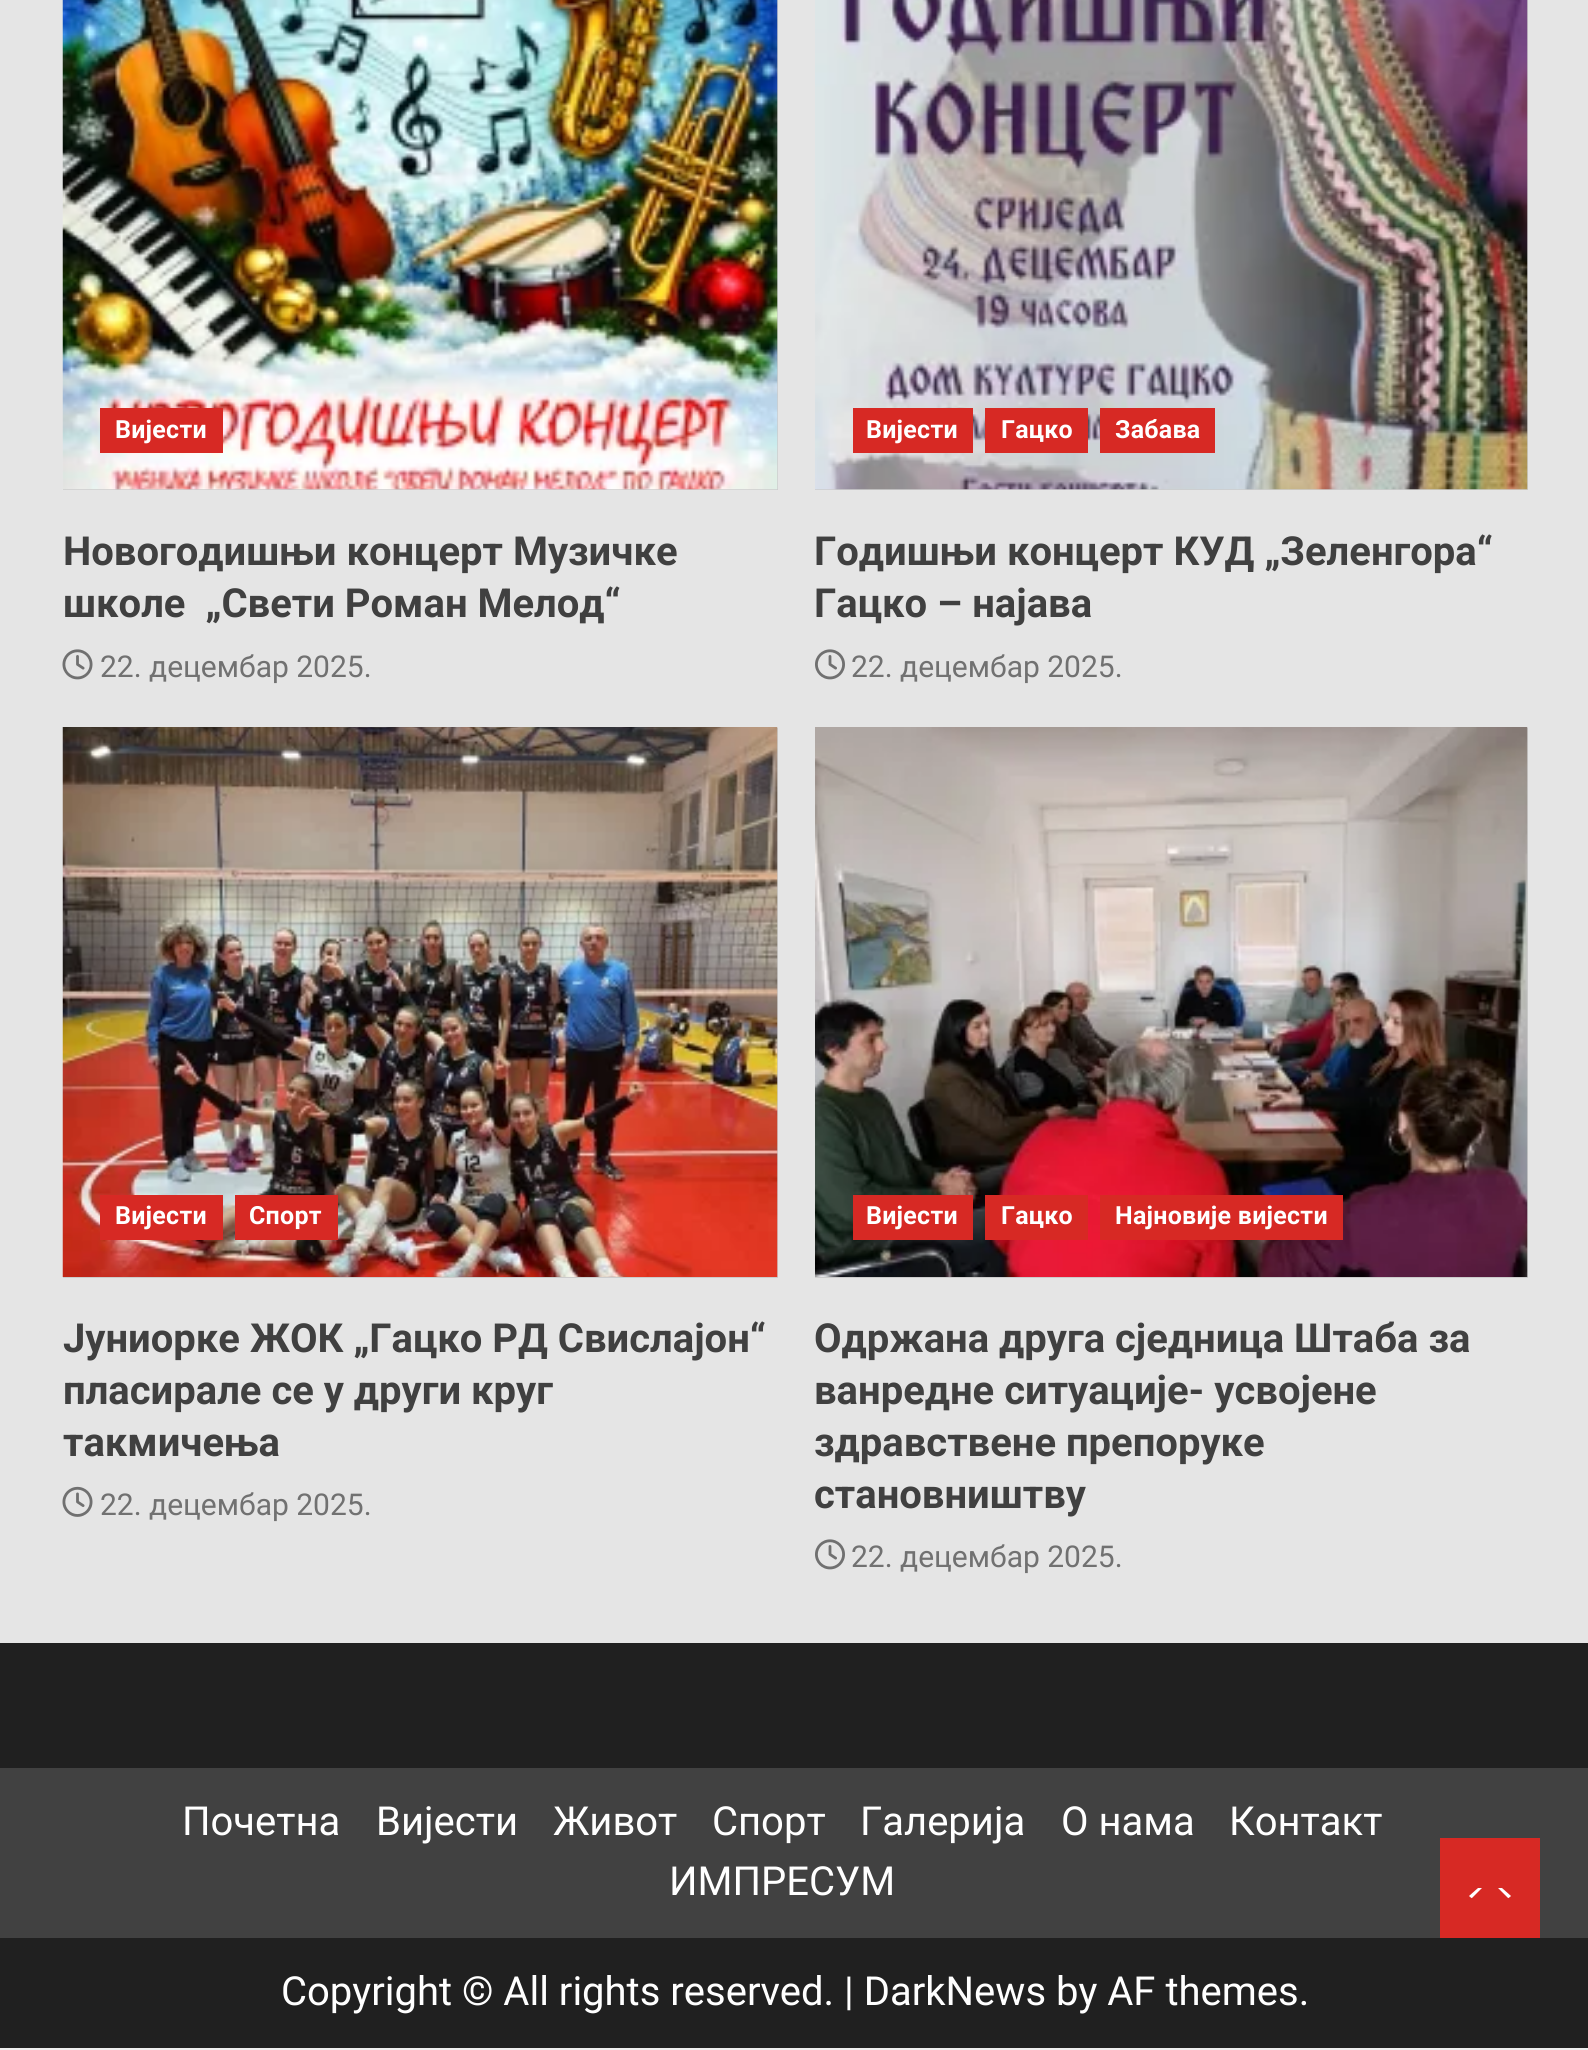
#include <cairo/cairo.h>
#include <math.h>
#include <stddef.h>


static void draw_spaced(cairo_t *cr, double x, double y, const char *s, double letter, double word) {
  cairo_move_to(cr, x, y);
  while (*s) {
    char ch[5] = {0};
    int n = 0;
    do ch[n++] = *s++; while ((*s & 0xC0) == 0x80);
    cairo_show_text(cr, ch);
    cairo_rel_move_to(cr, letter + word * (*ch == ' '), 0);
  }
}

static void draw_image(cairo_t *cr, const char *path, double x, double y, double w, double h) {
  cairo_surface_t *image = cairo_image_surface_create_from_png(path);
  cairo_save(cr);
  cairo_set_source_surface(cr, image, x, y);
  cairo_rectangle(cr, x, y, w, h);
  cairo_fill(cr);
  cairo_restore(cr);
  cairo_surface_destroy(image);
}

static void draw(cairo_t *cr) {
  cairo_set_source_rgb(cr, 238 / 255.0, 238 / 255.0, 238 / 255.0);
  cairo_paint(cr);
  cairo_set_source_rgb(cr, 229 / 255.0, 229 / 255.0, 229 / 255.0);
  cairo_rectangle(cr, 0, 0, 1588, 1643);
  cairo_fill(cr);
  cairo_set_source_rgb(cr, 204 / 255.0, 204 / 255.0, 204 / 255.0);
  cairo_rectangle(cr, 63, 0, 715, 490);
  cairo_fill(cr);
  draw_image(cr, "images/1.png", 62, 0, 716, 490);
  cairo_set_source_rgb(cr, 215 / 255.0, 41 / 255.0, 36 / 255.0);
  cairo_rectangle(cr, 100, 408, 123, 45);
  cairo_fill(cr);
  draw_image(cr, "images/2.png", 62, 649, 31, 31);
  cairo_set_source_rgb(cr, 204 / 255.0, 204 / 255.0, 204 / 255.0);
  cairo_rectangle(cr, 815, 0, 713, 490);
  cairo_fill(cr);
  draw_image(cr, "images/3.png", 815, 0, 713, 490);
  cairo_set_source_rgb(cr, 215 / 255.0, 41 / 255.0, 36 / 255.0);
  cairo_rectangle(cr, 853, 408, 120, 45);
  cairo_fill(cr);
  cairo_rectangle(cr, 985, 408, 103, 45);
  cairo_fill(cr);
  cairo_rectangle(cr, 1100, 408, 115, 45);
  cairo_fill(cr);
  draw_image(cr, "images/4.png", 815, 649, 30, 31);
  cairo_set_source_rgb(cr, 204 / 255.0, 204 / 255.0, 204 / 255.0);
  cairo_rectangle(cr, 63, 728, 715, 550);
  cairo_fill(cr);
  draw_image(cr, "images/5.png", 62, 727, 716, 550);
  cairo_set_source_rgb(cr, 215 / 255.0, 41 / 255.0, 36 / 255.0);
  cairo_rectangle(cr, 100, 1195, 123, 45);
  cairo_fill(cr);
  cairo_rectangle(cr, 235, 1195, 103, 45);
  cairo_fill(cr);
  draw_image(cr, "images/6.png", 62, 1486, 31, 31);
  cairo_set_source_rgb(cr, 204 / 255.0, 204 / 255.0, 204 / 255.0);
  cairo_rectangle(cr, 815, 728, 713, 550);
  cairo_fill(cr);
  draw_image(cr, "images/7.png", 815, 727, 713, 550);
  cairo_set_source_rgb(cr, 215 / 255.0, 41 / 255.0, 36 / 255.0);
  cairo_rectangle(cr, 853, 1195, 120, 45);
  cairo_fill(cr);
  cairo_rectangle(cr, 985, 1195, 103, 45);
  cairo_fill(cr);
  cairo_rectangle(cr, 1100, 1195, 243, 45);
  cairo_fill(cr);
  draw_image(cr, "images/4.png", 815, 1539, 30, 31);
  cairo_set_source_rgb(cr, 32 / 255.0, 32 / 255.0, 32 / 255.0);
  cairo_rectangle(cr, 0, 1643, 1588, 405);
  cairo_fill(cr);
  cairo_set_source_rgb(cr, 65 / 255.0, 65 / 255.0, 65 / 255.0);
  cairo_rectangle(cr, 0, 1768, 1588, 170);
  cairo_fill(cr);
  cairo_set_source_rgb(cr, 215 / 255.0, 41 / 255.0, 36 / 255.0);
  cairo_rectangle(cr, 1440, 1838, 100, 100);
  cairo_fill(cr);
  cairo_set_source_rgb(cr, 1, 1, 1);
  cairo_new_path(cr);
  cairo_move_to(cr, 1478, 1900);
  cairo_line_to(cr, 1502, 1900);
  cairo_curve_to(cr, 1506, 1900, 1509, 1898, 1511, 1896);
  cairo_line_to(cr, 1502, 1888);
  cairo_line_to(cr, 1478, 1888);
  cairo_line_to(cr, 1469, 1896);
  cairo_curve_to(cr, 1471, 1898, 1474, 1900, 1478, 1900);
  cairo_close_path(cr);
  cairo_fill(cr);
  cairo_set_source_rgb(cr, 215 / 255.0, 41 / 255.0, 36 / 255.0);
  cairo_new_path(cr);
  cairo_move_to(cr, 1515, 1905);
  cairo_line_to(cr, 1465, 1905);
  cairo_line_to(cr, 1490, 1880);
  cairo_close_path(cr);
  cairo_fill(cr);
  cairo_select_font_face(cr, "Roboto", CAIRO_FONT_SLANT_NORMAL, CAIRO_FONT_WEIGHT_BOLD);
  cairo_set_font_size(cr, 25);
  cairo_set_source_rgb(cr, 1, 1, 1);
  draw_spaced(cr, 115, 438, "Вијести", 0.25, 0);
  cairo_set_font_size(cr, 40);
  cairo_set_source_rgb(cr, 64 / 255.0, 64 / 255.0, 64 / 255.0);
  cairo_move_to(cr, 63, 565);
  cairo_show_text(cr, "Новогодишњи концерт Музичке");
  cairo_move_to(cr, 63, 617);
  cairo_show_text(cr, "школе  „Свети Роман Мелод“");
  cairo_select_font_face(cr, "Roboto", CAIRO_FONT_SLANT_NORMAL, CAIRO_FONT_WEIGHT_NORMAL);
  cairo_set_font_size(cr, 30);
  cairo_set_source_rgb(cr, 113 / 255.0, 113 / 255.0, 113 / 255.0);
  cairo_move_to(cr, 100, 677);
  cairo_show_text(cr, "22. децембар 2025.");
  cairo_select_font_face(cr, "Roboto", CAIRO_FONT_SLANT_NORMAL, CAIRO_FONT_WEIGHT_BOLD);
  cairo_set_font_size(cr, 25);
  cairo_set_source_rgb(cr, 1, 1, 1);
  draw_spaced(cr, 866, 438, "Вијести", 0.25, 0);
  draw_spaced(cr, 1001, 438, "Гацко", 0.25, 0);
  draw_spaced(cr, 1115, 438, "Забава", 0.25, 0);
  cairo_set_font_size(cr, 40);
  cairo_set_source_rgb(cr, 64 / 255.0, 64 / 255.0, 64 / 255.0);
  cairo_move_to(cr, 814, 565);
  cairo_show_text(cr, "Годишњи концерт КУД „Зеленгора“");
  cairo_move_to(cr, 814, 617);
  cairo_show_text(cr, "Гацко – најава");
  cairo_select_font_face(cr, "Roboto", CAIRO_FONT_SLANT_NORMAL, CAIRO_FONT_WEIGHT_NORMAL);
  cairo_set_font_size(cr, 30);
  cairo_set_source_rgb(cr, 113 / 255.0, 113 / 255.0, 113 / 255.0);
  cairo_move_to(cr, 851, 677);
  cairo_show_text(cr, "22. децембар 2025.");
  cairo_select_font_face(cr, "Roboto", CAIRO_FONT_SLANT_NORMAL, CAIRO_FONT_WEIGHT_BOLD);
  cairo_set_font_size(cr, 25);
  cairo_set_source_rgb(cr, 1, 1, 1);
  draw_spaced(cr, 115, 1224, "Вијести", 0.25, 0);
  draw_spaced(cr, 249, 1224, "Спорт", 0.25, 0);
  cairo_set_font_size(cr, 40);
  cairo_set_source_rgb(cr, 64 / 255.0, 64 / 255.0, 64 / 255.0);
  cairo_move_to(cr, 63, 1352);
  cairo_show_text(cr, "Јуниорке ЖОК „Гацко РД Свислајон“");
  cairo_move_to(cr, 63, 1404);
  cairo_show_text(cr, "пласирале се у други круг");
  cairo_move_to(cr, 63, 1456);
  cairo_show_text(cr, "такмичења");
  cairo_select_font_face(cr, "Roboto", CAIRO_FONT_SLANT_NORMAL, CAIRO_FONT_WEIGHT_NORMAL);
  cairo_set_font_size(cr, 30);
  cairo_set_source_rgb(cr, 113 / 255.0, 113 / 255.0, 113 / 255.0);
  cairo_move_to(cr, 100, 1515);
  cairo_show_text(cr, "22. децембар 2025.");
  cairo_select_font_face(cr, "Roboto", CAIRO_FONT_SLANT_NORMAL, CAIRO_FONT_WEIGHT_BOLD);
  cairo_set_font_size(cr, 25);
  cairo_set_source_rgb(cr, 1, 1, 1);
  draw_spaced(cr, 866, 1224, "Вијести", 0.25, 0);
  draw_spaced(cr, 1001, 1224, "Гацко", 0.25, 0);
  draw_spaced(cr, 1115, 1224, "Најновије вијести", 0.25, 0);
  cairo_set_font_size(cr, 40);
  cairo_set_source_rgb(cr, 64 / 255.0, 64 / 255.0, 64 / 255.0);
  cairo_move_to(cr, 814, 1352);
  cairo_show_text(cr, "Одржана друга сједница Штаба за");
  cairo_move_to(cr, 814, 1404);
  cairo_show_text(cr, "ванредне ситуације- усвојене");
  cairo_move_to(cr, 814, 1456);
  cairo_show_text(cr, "здравствене препоруке");
  cairo_move_to(cr, 814, 1508);
  cairo_show_text(cr, "становништву");
  cairo_select_font_face(cr, "Roboto", CAIRO_FONT_SLANT_NORMAL, CAIRO_FONT_WEIGHT_NORMAL);
  cairo_set_font_size(cr, 30);
  cairo_set_source_rgb(cr, 113 / 255.0, 113 / 255.0, 113 / 255.0);
  cairo_move_to(cr, 851, 1567);
  cairo_show_text(cr, "22. децембар 2025.");
  cairo_set_font_size(cr, 40);
  cairo_set_source_rgb(cr, 1, 1, 1);
  cairo_move_to(cr, 182, 1835);
  cairo_show_text(cr, "Почетна");
  cairo_move_to(cr, 376, 1835);
  cairo_show_text(cr, "Вијести");
  cairo_move_to(cr, 553, 1835);
  cairo_show_text(cr, "Живот");
  cairo_move_to(cr, 712, 1835);
  cairo_show_text(cr, "Спорт");
  cairo_move_to(cr, 860, 1835);
  cairo_show_text(cr, "Галерија");
  cairo_move_to(cr, 1061, 1835);
  cairo_show_text(cr, "О нама");
  cairo_move_to(cr, 1229, 1835);
  cairo_show_text(cr, "Контакт");
  cairo_move_to(cr, 669, 1895);
  cairo_show_text(cr, "ИМПРЕСУМ");
  cairo_move_to(cr, 281, 2005);
  cairo_show_text(cr, "Copyright © All rights reserved. | DarkNews by AF themes.");
}

int main(void) {
  cairo_surface_t *surface = cairo_image_surface_create(CAIRO_FORMAT_RGB24, 1588, 2050);
  cairo_t *cr = cairo_create(surface);
  cairo_font_options_t *options = cairo_font_options_create();
  cairo_font_options_set_hint_metrics(options, CAIRO_HINT_METRICS_OFF);
  cairo_font_options_set_hint_style(options, CAIRO_HINT_STYLE_NONE);
  cairo_set_font_options(cr, options);
  cairo_set_miter_limit(cr, 4);
  draw(cr);
  cairo_surface_write_to_png(surface, "out.png");
  cairo_font_options_destroy(options);
  cairo_destroy(cr);
  cairo_surface_destroy(surface);
  return 0;
}
